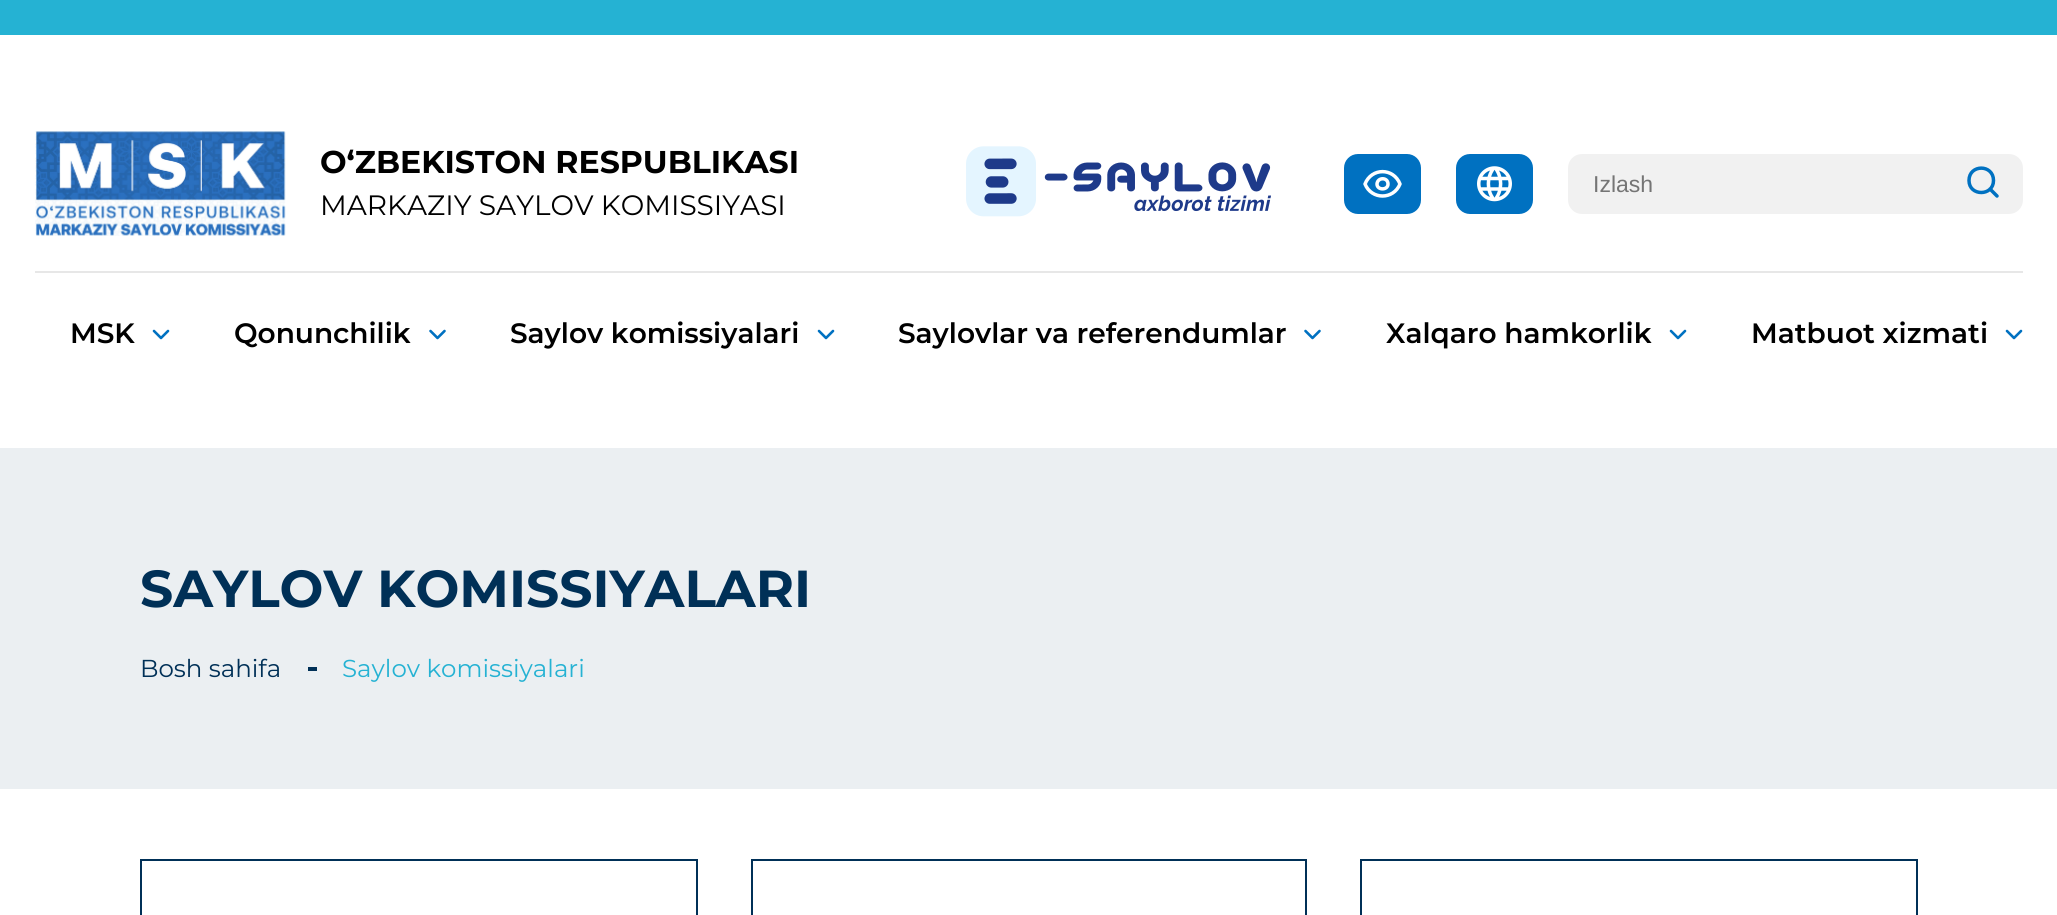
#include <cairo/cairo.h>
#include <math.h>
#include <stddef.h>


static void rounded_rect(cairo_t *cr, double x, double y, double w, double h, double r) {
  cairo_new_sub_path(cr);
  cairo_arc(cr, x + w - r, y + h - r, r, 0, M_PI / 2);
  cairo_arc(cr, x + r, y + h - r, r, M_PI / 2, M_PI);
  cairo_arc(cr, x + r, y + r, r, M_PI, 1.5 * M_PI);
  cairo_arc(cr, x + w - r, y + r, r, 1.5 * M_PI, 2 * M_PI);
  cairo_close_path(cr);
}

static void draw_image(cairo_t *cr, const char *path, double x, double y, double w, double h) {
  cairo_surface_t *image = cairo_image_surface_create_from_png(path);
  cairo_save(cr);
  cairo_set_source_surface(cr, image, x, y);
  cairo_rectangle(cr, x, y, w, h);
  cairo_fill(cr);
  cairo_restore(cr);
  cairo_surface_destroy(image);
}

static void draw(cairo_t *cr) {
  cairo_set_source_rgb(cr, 1, 1, 1);
  cairo_paint(cr);
  cairo_set_source_rgb(cr, 37 / 255.0, 178 / 255.0, 211 / 255.0);
  cairo_rectangle(cr, 0, 0, 2057, 35);
  cairo_fill(cr);
  cairo_set_source_rgb(cr, 231 / 255.0, 231 / 255.0, 231 / 255.0);
  cairo_rectangle(cr, 35, 271, 1988, 2);
  cairo_fill(cr);
  draw_image(cr, "images/1.png", 35, 131, 251, 105);
  draw_image(cr, "images/2.png", 966, 146, 305, 71);
  cairo_set_source_rgb(cr, 0, 113 / 255.0, 193 / 255.0);
  rounded_rect(cr, 1344, 154, 77, 60, 14);
  cairo_fill(cr);
  cairo_new_path(cr);
  cairo_move_to(cr, 1388, 184);
  cairo_curve_to(cr, 1388, 190.5, 1377, 190.5, 1377, 184);
  cairo_curve_to(cr, 1377.5, 177, 1388, 177, 1388, 184);
  cairo_close_path(cr);
  cairo_move_to(cr, 1365, 184);
  cairo_curve_to(cr, 1371.5, 167.5, 1393.5, 167.5, 1400, 184);
  cairo_curve_to(cr, 1393.5, 200, 1371.5, 200, 1365, 184);
  cairo_close_path(cr);
  cairo_set_source_rgb(cr, 1, 1, 1);
  cairo_set_line_width(cr, 3.5);
  cairo_set_line_cap(cr, CAIRO_LINE_CAP_ROUND);
  cairo_set_line_join(cr, CAIRO_LINE_JOIN_ROUND);
  cairo_stroke(cr);
  cairo_set_source_rgb(cr, 0, 113 / 255.0, 193 / 255.0);
  rounded_rect(cr, 1456, 154, 77, 60, 14);
  cairo_fill(cr);
  draw_image(cr, "images/3.png", 1477, 166, 35, 36);
  cairo_set_source_rgb(cr, 241 / 255.0, 241 / 255.0, 241 / 255.0);
  rounded_rect(cr, 1568, 154, 455, 60, 14);
  cairo_fill(cr);
  cairo_new_path(cr);
  cairo_move_to(cr, 1993.5, 180.5);
  cairo_curve_to(cr, 1993.5, 196.5, 1969, 196.5, 1969, 180.5);
  cairo_curve_to(cr, 1969, 164, 1993.5, 164, 1993.5, 180.5);
  cairo_close_path(cr);
  cairo_move_to(cr, 1997, 196);
  cairo_line_to(cr, 1990, 189);
  cairo_set_source_rgb(cr, 0, 113 / 255.0, 193 / 255.0);
  cairo_stroke(cr);
  cairo_new_path(cr);
  cairo_move_to(cr, 154, 331);
  cairo_line_to(cr, 161, 338);
  cairo_line_to(cr, 168, 331);
  cairo_set_line_width(cr, 2.6);
  cairo_stroke(cr);
  cairo_new_path(cr);
  cairo_move_to(cr, 430.5, 331);
  cairo_line_to(cr, 437.5, 338);
  cairo_line_to(cr, 444.5, 331);
  cairo_stroke(cr);
  cairo_new_path(cr);
  cairo_move_to(cr, 819, 331);
  cairo_line_to(cr, 826, 338);
  cairo_line_to(cr, 833, 331);
  cairo_stroke(cr);
  cairo_new_path(cr);
  cairo_move_to(cr, 1305.5, 331);
  cairo_line_to(cr, 1312.5, 338);
  cairo_line_to(cr, 1319.5, 331);
  cairo_stroke(cr);
  cairo_new_path(cr);
  cairo_move_to(cr, 1671, 331);
  cairo_line_to(cr, 1678, 338);
  cairo_line_to(cr, 1685, 331);
  cairo_stroke(cr);
  cairo_new_path(cr);
  cairo_move_to(cr, 2007, 331);
  cairo_line_to(cr, 2014, 338);
  cairo_line_to(cr, 2021, 331);
  cairo_stroke(cr);
  cairo_set_source_rgb(cr, 235 / 255.0, 239 / 255.0, 242 / 255.0);
  cairo_rectangle(cr, 0, 448, 2057, 341);
  cairo_fill(cr);
  cairo_set_source_rgb(cr, 0, 48 / 255.0, 87 / 255.0);
  cairo_rectangle(cr, 308, 667, 9, 4);
  cairo_fill(cr);
  cairo_rectangle(cr, 141, 860, 556, 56);
  cairo_set_line_width(cr, 2);
  cairo_set_line_cap(cr, CAIRO_LINE_CAP_BUTT);
  cairo_set_line_join(cr, CAIRO_LINE_JOIN_MITER);
  cairo_stroke(cr);
  cairo_rectangle(cr, 752, 860, 554, 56);
  cairo_stroke(cr);
  cairo_rectangle(cr, 1361, 860, 556, 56);
  cairo_stroke(cr);
  cairo_select_font_face(cr, "Montserrat", CAIRO_FONT_SLANT_NORMAL, CAIRO_FONT_WEIGHT_BOLD);
  cairo_set_font_size(cr, 31.5);
  cairo_set_source_rgb(cr, 0, 0, 0);
  cairo_move_to(cr, 320, 173);
  cairo_show_text(cr, "O‘ZBEKISTON RESPUBLIKASI");
  cairo_select_font_face(cr, "Montserrat", CAIRO_FONT_SLANT_NORMAL, CAIRO_FONT_WEIGHT_NORMAL);
  cairo_set_font_size(cr, 28);
  cairo_move_to(cr, 320, 215);
  cairo_show_text(cr, "MARKAZIY SAYLOV KOMISSIYASI");
  cairo_select_font_face(cr, "Liberation Sans", CAIRO_FONT_SLANT_NORMAL, CAIRO_FONT_WEIGHT_NORMAL);
  cairo_set_font_size(cr, 23);
  cairo_set_source_rgb(cr, 117 / 255.0, 117 / 255.0, 117 / 255.0);
  cairo_move_to(cr, 1593, 192);
  cairo_show_text(cr, "Izlash");
  cairo_select_font_face(cr, "Montserrat SemiBold", CAIRO_FONT_SLANT_NORMAL, CAIRO_FONT_WEIGHT_NORMAL);
  cairo_set_font_size(cr, 28);
  cairo_set_source_rgb(cr, 0, 0, 0);
  cairo_move_to(cr, 70, 343);
  cairo_show_text(cr, "MSK");
  cairo_move_to(cr, 234, 343);
  cairo_show_text(cr, "Qonunchilik");
  cairo_move_to(cr, 510, 343);
  cairo_show_text(cr, "Saylov komissiyalari");
  cairo_move_to(cr, 898, 343);
  cairo_show_text(cr, "Saylovlar va referendumlar");
  cairo_move_to(cr, 1386, 343);
  cairo_show_text(cr, "Xalqaro hamkorlik");
  cairo_move_to(cr, 1751, 343);
  cairo_show_text(cr, "Matbuot xizmati");
  cairo_select_font_face(cr, "Montserrat", CAIRO_FONT_SLANT_NORMAL, CAIRO_FONT_WEIGHT_BOLD);
  cairo_set_font_size(cr, 52);
  cairo_set_source_rgb(cr, 0, 48 / 255.0, 87 / 255.0);
  cairo_move_to(cr, 140, 607);
  cairo_show_text(cr, "SAYLOV KOMISSIYALARI");
  cairo_select_font_face(cr, "Montserrat", CAIRO_FONT_SLANT_NORMAL, CAIRO_FONT_WEIGHT_NORMAL);
  cairo_set_font_size(cr, 24.5);
  cairo_move_to(cr, 140, 677);
  cairo_show_text(cr, "Bosh sahifa");
  cairo_set_source_rgb(cr, 37 / 255.0, 178 / 255.0, 211 / 255.0);
  cairo_move_to(cr, 342, 677);
  cairo_show_text(cr, "Saylov komissiyalari");
}

int main(void) {
  cairo_surface_t *surface = cairo_image_surface_create(CAIRO_FORMAT_RGB24, 2057, 915);
  cairo_t *cr = cairo_create(surface);
  cairo_font_options_t *options = cairo_font_options_create();
  cairo_font_options_set_hint_metrics(options, CAIRO_HINT_METRICS_OFF);
  cairo_font_options_set_hint_style(options, CAIRO_HINT_STYLE_NONE);
  cairo_set_font_options(cr, options);
  cairo_set_miter_limit(cr, 4);
  draw(cr);
  cairo_surface_write_to_png(surface, "out.png");
  cairo_font_options_destroy(options);
  cairo_destroy(cr);
  cairo_surface_destroy(surface);
  return 0;
}
